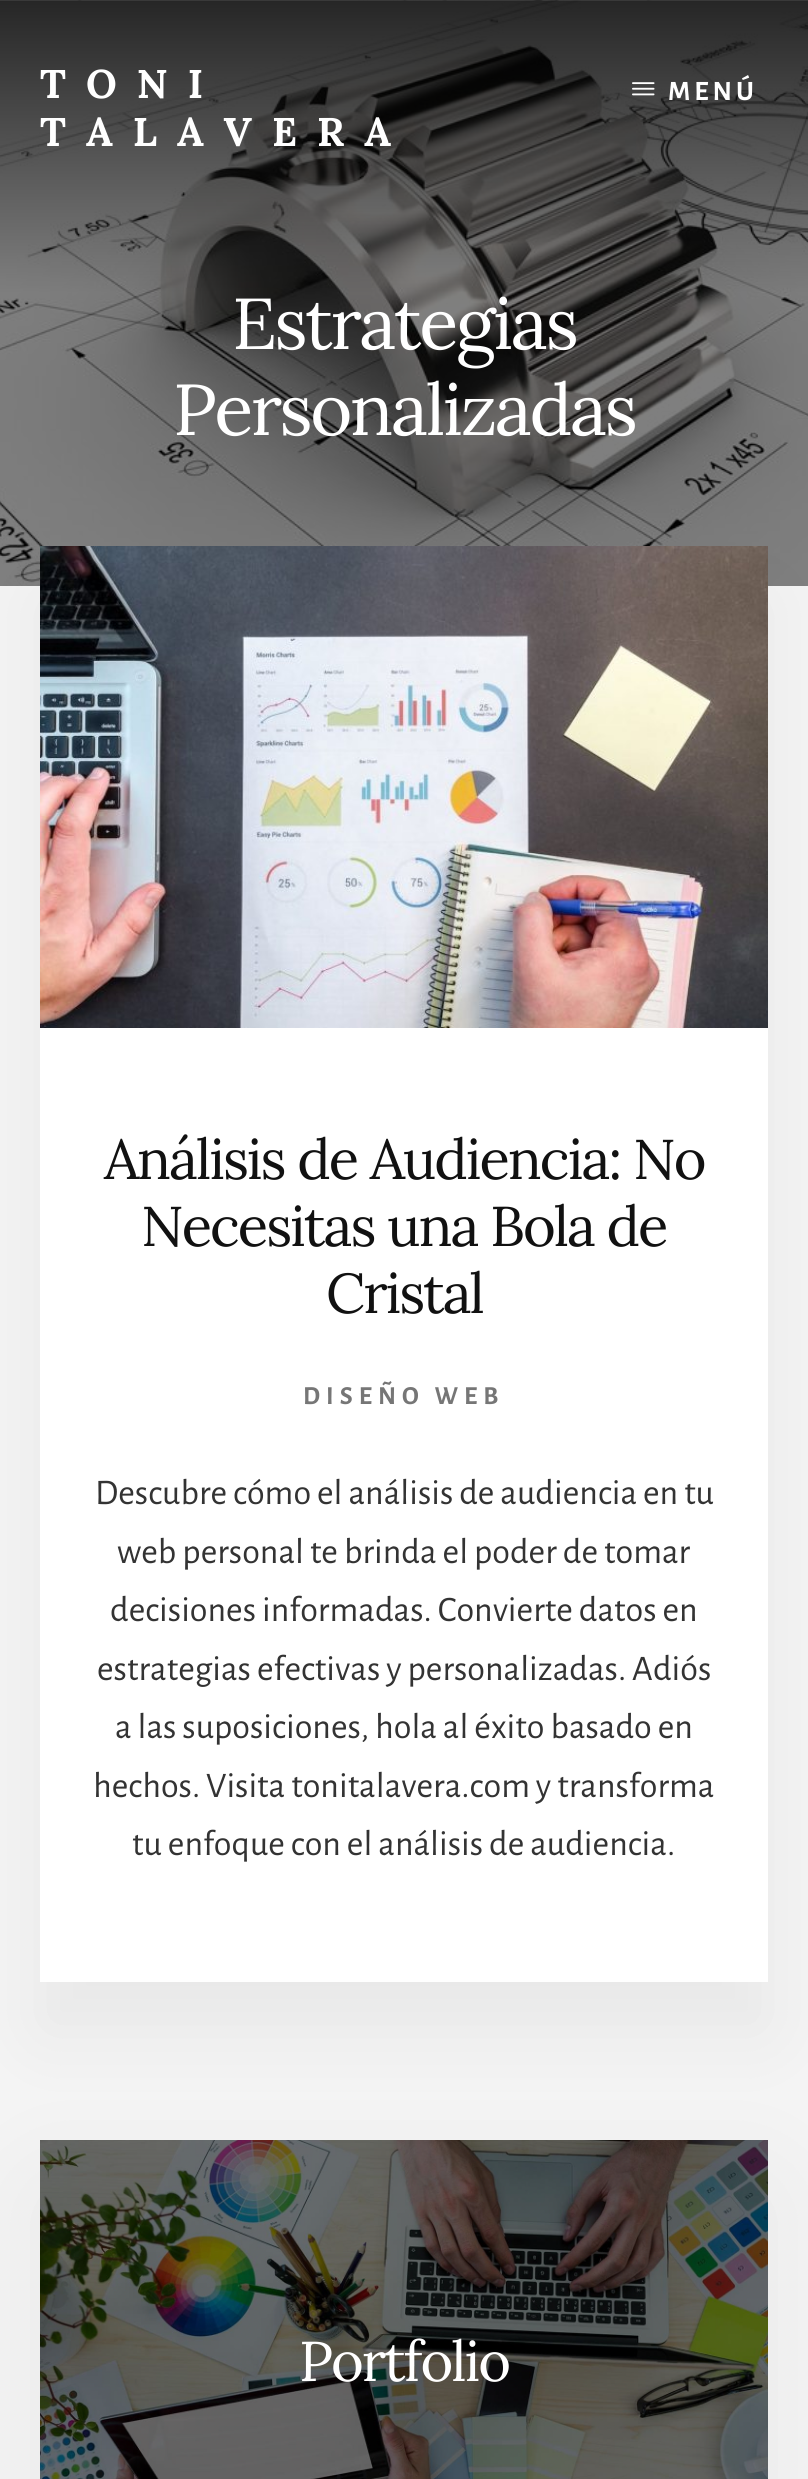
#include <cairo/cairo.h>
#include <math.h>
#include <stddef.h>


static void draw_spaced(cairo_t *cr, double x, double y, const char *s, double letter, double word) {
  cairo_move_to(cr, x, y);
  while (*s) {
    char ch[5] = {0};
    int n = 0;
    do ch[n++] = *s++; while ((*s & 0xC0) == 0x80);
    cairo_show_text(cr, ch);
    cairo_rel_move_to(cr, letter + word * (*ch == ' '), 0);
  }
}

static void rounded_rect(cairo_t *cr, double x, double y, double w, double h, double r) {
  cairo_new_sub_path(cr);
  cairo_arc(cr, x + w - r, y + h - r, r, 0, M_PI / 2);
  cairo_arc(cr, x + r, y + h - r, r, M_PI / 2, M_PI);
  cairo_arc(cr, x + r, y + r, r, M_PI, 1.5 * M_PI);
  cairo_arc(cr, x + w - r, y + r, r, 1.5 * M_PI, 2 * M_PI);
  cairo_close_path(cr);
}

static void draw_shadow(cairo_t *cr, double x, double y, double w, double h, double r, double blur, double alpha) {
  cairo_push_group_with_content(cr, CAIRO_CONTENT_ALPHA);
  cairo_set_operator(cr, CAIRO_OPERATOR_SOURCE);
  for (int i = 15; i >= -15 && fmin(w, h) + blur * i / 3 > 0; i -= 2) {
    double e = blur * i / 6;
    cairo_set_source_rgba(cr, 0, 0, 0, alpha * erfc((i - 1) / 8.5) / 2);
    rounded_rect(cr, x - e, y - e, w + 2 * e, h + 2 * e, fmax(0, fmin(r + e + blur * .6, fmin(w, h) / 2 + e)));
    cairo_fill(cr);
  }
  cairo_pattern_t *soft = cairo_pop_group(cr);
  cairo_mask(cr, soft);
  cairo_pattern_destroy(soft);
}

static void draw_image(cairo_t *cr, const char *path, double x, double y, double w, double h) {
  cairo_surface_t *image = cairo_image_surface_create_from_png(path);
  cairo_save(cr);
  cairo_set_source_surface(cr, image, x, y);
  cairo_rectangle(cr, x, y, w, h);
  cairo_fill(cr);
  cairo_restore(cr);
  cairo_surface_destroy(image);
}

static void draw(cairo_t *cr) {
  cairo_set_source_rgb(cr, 244 / 255.0, 244 / 255.0, 244 / 255.0);
  cairo_paint(cr);
  draw_image(cr, "images/1.png", 0, 0, 808, 586);
  draw_image(cr, "images/2.png", 632, 82, 23, 14);
  cairo_set_source_rgb(cr, 0, 0, 0);
  draw_shadow(cr, 40, 2190, 728, 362, 0, 60, 0.05);
  draw_image(cr, "images/4.png", 40, 2140, 728, 339);
  draw_shadow(cr, 40, 596, 728, 1436, 0, 40, 0.05);
  cairo_set_source_rgb(cr, 1, 1, 1);
  cairo_rectangle(cr, 40, 1028, 728, 954);
  cairo_fill(cr);
  draw_image(cr, "images/3.png", 40, 546, 728, 482);
  cairo_select_font_face(cr, "Lora", CAIRO_FONT_SLANT_NORMAL, CAIRO_FONT_WEIGHT_BOLD);
  cairo_set_font_size(cr, 40);
  draw_spaced(cr, 40, 98, "TONI", 20, 0);
  draw_spaced(cr, 40, 146, "TALAVERA", 20, 0);
  cairo_select_font_face(cr, "Alegreya Sans", CAIRO_FONT_SLANT_NORMAL, CAIRO_FONT_WEIGHT_BOLD);
  cairo_set_font_size(cr, 28);
  draw_spaced(cr, 668, 100, "MENÚ", 4, 0);
  cairo_select_font_face(cr, "Lora", CAIRO_FONT_SLANT_NORMAL, CAIRO_FONT_WEIGHT_NORMAL);
  cairo_set_font_size(cr, 72);
  draw_spaced(cr, 232, 349, "Estrategias", -2.5, 0);
  draw_spaced(cr, 173, 435, "Personalizadas", -2.5, 0);
  cairo_set_font_size(cr, 56);
  cairo_set_source_rgb(cr, 17 / 255.0, 17 / 255.0, 17 / 255.0);
  draw_spaced(cr, 104, 1179, "Análisis de Audiencia: No", -2, 0);
  draw_spaced(cr, 141, 1246, "Necesitas una Bola de", -2, 0);
  draw_spaced(cr, 326, 1313, "Cristal", -2, 0);
  cairo_select_font_face(cr, "Alegreya Sans", CAIRO_FONT_SLANT_NORMAL, CAIRO_FONT_WEIGHT_BOLD);
  cairo_set_font_size(cr, 26);
  cairo_set_source_rgb(cr, 118 / 255.0, 118 / 255.0, 118 / 255.0);
  draw_spaced(cr, 303, 1404, "DISEÑO WEB", 6, 0);
  cairo_select_font_face(cr, "Alegreya Sans", CAIRO_FONT_SLANT_NORMAL, CAIRO_FONT_WEIGHT_NORMAL);
  cairo_set_font_size(cr, 36);
  cairo_set_source_rgb(cr, 51 / 255.0, 51 / 255.0, 51 / 255.0);
  cairo_move_to(cr, 95, 1504);
  cairo_show_text(cr, "Descubre cómo el análisis de audiencia en tu");
  cairo_move_to(cr, 117, 1563);
  cairo_show_text(cr, "web personal te brinda el poder de tomar");
  cairo_move_to(cr, 110, 1621);
  cairo_show_text(cr, "decisiones informadas. Convierte datos en");
  cairo_move_to(cr, 97, 1680);
  cairo_show_text(cr, "estrategias efectivas y personalizadas. Adiós");
  cairo_move_to(cr, 115, 1738);
  cairo_show_text(cr, "a las suposiciones, hola al éxito basado en");
  cairo_move_to(cr, 93, 1797);
  cairo_show_text(cr, "hechos. Visita tonitalavera.com y transforma");
  cairo_move_to(cr, 132, 1855);
  cairo_show_text(cr, "tu enfoque con el análisis de audiencia.");
  cairo_select_font_face(cr, "Lora", CAIRO_FONT_SLANT_NORMAL, CAIRO_FONT_WEIGHT_NORMAL);
  cairo_set_font_size(cr, 56);
  cairo_set_source_rgb(cr, 1, 1, 1);
  draw_spaced(cr, 299, 2381, "Portfolio", -2, 0);
}

int main(void) {
  cairo_surface_t *surface = cairo_image_surface_create(CAIRO_FORMAT_RGB24, 808, 2479);
  cairo_t *cr = cairo_create(surface);
  cairo_font_options_t *options = cairo_font_options_create();
  cairo_font_options_set_hint_metrics(options, CAIRO_HINT_METRICS_OFF);
  cairo_font_options_set_hint_style(options, CAIRO_HINT_STYLE_NONE);
  cairo_set_font_options(cr, options);
  cairo_set_miter_limit(cr, 4);
  draw(cr);
  cairo_surface_write_to_png(surface, "out.png");
  cairo_font_options_destroy(options);
  cairo_destroy(cr);
  cairo_surface_destroy(surface);
  return 0;
}
